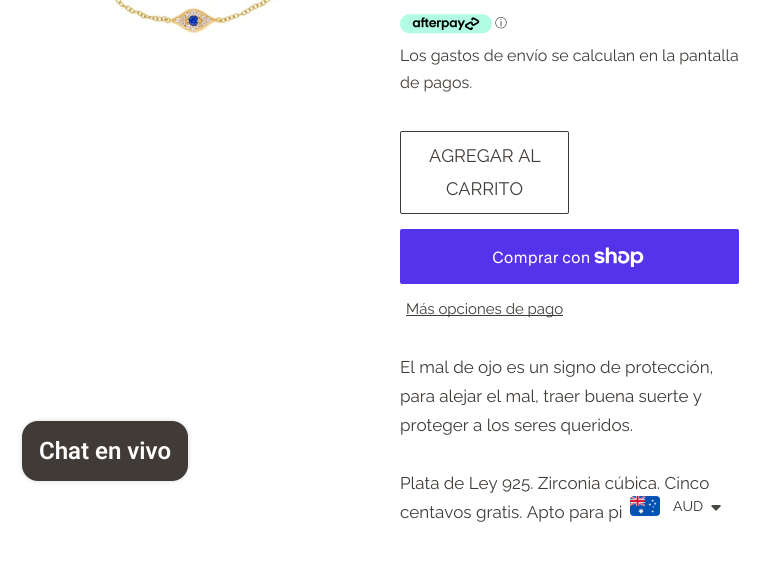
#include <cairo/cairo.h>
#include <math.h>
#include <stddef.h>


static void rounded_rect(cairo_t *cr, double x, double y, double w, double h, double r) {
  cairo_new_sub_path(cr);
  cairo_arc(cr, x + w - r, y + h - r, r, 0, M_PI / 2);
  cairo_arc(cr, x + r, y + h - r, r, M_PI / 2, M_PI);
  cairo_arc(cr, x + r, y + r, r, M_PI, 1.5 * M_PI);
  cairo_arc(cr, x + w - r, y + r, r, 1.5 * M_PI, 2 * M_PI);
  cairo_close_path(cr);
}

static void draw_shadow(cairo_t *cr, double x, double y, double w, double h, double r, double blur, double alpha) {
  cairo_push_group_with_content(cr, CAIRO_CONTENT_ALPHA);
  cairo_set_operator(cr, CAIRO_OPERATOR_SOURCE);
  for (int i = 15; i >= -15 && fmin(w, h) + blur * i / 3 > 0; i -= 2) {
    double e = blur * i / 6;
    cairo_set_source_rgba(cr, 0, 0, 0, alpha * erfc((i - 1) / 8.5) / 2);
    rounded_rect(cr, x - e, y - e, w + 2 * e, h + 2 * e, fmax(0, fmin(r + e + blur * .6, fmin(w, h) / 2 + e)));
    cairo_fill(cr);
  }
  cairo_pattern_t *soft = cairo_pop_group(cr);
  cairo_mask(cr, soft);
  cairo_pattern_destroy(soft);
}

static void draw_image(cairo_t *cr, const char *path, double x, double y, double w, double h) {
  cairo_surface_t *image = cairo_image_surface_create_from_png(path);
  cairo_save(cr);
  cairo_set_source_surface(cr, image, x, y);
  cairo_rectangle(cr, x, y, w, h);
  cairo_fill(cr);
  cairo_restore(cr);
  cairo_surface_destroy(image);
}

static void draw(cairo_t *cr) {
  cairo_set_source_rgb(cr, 1, 1, 1);
  cairo_paint(cr);
  cairo_set_source_rgb(cr, 0, 0, 0);
  draw_shadow(cr, 22, 421, 166, 60, 16, 2.5, 0.15);
  cairo_set_source_rgb(cr, 64 / 255.0, 59 / 255.0, 55 / 255.0);
  rounded_rect(cr, 22, 421, 166, 60, 16);
  cairo_fill(cr);
  draw_image(cr, "images/1.png", 112, 0, 167, 36);
  draw_image(cr, "images/2.png", 400, 14, 92, 20);
  rounded_rect(cr, 400.5, 131.5, 168, 82, 1.5);
  cairo_set_line_width(cr, 1);
  cairo_stroke(cr);
  cairo_set_source_rgb(cr, 84 / 255.0, 51 / 255.0, 235 / 255.0);
  rounded_rect(cr, 400, 229, 339, 55, 2);
  cairo_fill(cr);
  draw_image(cr, "images/3.png", 594, 247, 50, 20);
  cairo_set_source_rgb(cr, 64 / 255.0, 59 / 255.0, 55 / 255.0);
  cairo_rectangle(cr, 406, 315, 157, 1);
  cairo_fill(cr);
  cairo_select_font_face(cr, "Roboto SemiBold", CAIRO_FONT_SLANT_NORMAL, CAIRO_FONT_WEIGHT_NORMAL);
  cairo_set_font_size(cr, 24);
  cairo_set_source_rgb(cr, 1, 1, 1);
  cairo_move_to(cr, 39, 459);
  cairo_show_text(cr, "Chat en vivo");
  cairo_select_font_face(cr, "WenQuanYi Zen Hei Medium", CAIRO_FONT_SLANT_NORMAL, CAIRO_FONT_WEIGHT_NORMAL);
  cairo_set_font_size(cr, 12);
  cairo_set_source_rgb(cr, 64 / 255.0, 59 / 255.0, 55 / 255.0);
  cairo_move_to(cr, 495, 27);
  cairo_show_text(cr, "ⓘ");
  cairo_select_font_face(cr, "Raleway", CAIRO_FONT_SLANT_NORMAL, CAIRO_FONT_WEIGHT_NORMAL);
  cairo_set_font_size(cr, 16);
  cairo_move_to(cr, 400, 61);
  cairo_show_text(cr, "Los gastos de envío se calculan en la pantalla");
  cairo_move_to(cr, 400, 88);
  cairo_show_text(cr, "de pagos.");
  cairo_set_font_size(cr, 18);
  cairo_move_to(cr, 429, 162);
  cairo_show_text(cr, "AGREGAR AL");
  cairo_move_to(cr, 446, 195);
  cairo_show_text(cr, "CARRITO");
  cairo_select_font_face(cr, "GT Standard", CAIRO_FONT_SLANT_NORMAL, CAIRO_FONT_WEIGHT_NORMAL);
  cairo_set_font_size(cr, 16);
  cairo_set_source_rgb(cr, 1, 1, 1);
  cairo_move_to(cr, 492, 263);
  cairo_show_text(cr, "Comprar con");
  cairo_select_font_face(cr, "Raleway", CAIRO_FONT_SLANT_NORMAL, CAIRO_FONT_WEIGHT_NORMAL);
  cairo_set_font_size(cr, 15);
  cairo_set_source_rgb(cr, 64 / 255.0, 59 / 255.0, 55 / 255.0);
  cairo_move_to(cr, 406, 314);
  cairo_show_text(cr, "Más opciones de pago");
  cairo_set_font_size(cr, 17);
  cairo_move_to(cr, 400, 373);
  cairo_show_text(cr, "El mal de ojo es un signo de protección,");
  cairo_move_to(cr, 400, 402);
  cairo_show_text(cr, "para alejar el mal, traer buena suerte y");
  cairo_move_to(cr, 400, 431);
  cairo_show_text(cr, "proteger a los seres queridos.");
  cairo_move_to(cr, 400, 489);
  cairo_show_text(cr, "Plata de Ley 925. Zirconia cúbica. Cinco");
  cairo_move_to(cr, 400, 518);
  cairo_show_text(cr, "centavos gratis. Apto para pi");
  cairo_set_source_rgb(cr, 1, 1, 1);
  rounded_rect(cr, 623, 489, 106, 34, 5);
  cairo_fill(cr);
  draw_image(cr, "images/4.png", 630, 496, 30, 20);
  cairo_set_font_size(cr, 14);
  cairo_set_source_rgb(cr, 51 / 255.0, 51 / 255.0, 51 / 255.0);
  cairo_move_to(cr, 673, 511);
  cairo_show_text(cr, "AUD");
  cairo_set_source_rgb(cr, 71 / 255.0, 73 / 255.0, 66 / 255.0);
  cairo_new_path(cr);
  cairo_move_to(cr, 713, 505);
  cairo_curve_to(cr, 712, 505, 711.5, 505.5, 711, 506);
  cairo_line_to(cr, 716, 511);
  cairo_line_to(cr, 721, 506);
  cairo_line_to(cr, 720, 505);
  cairo_close_path(cr);
  cairo_fill(cr);
}

int main(void) {
  cairo_surface_t *surface = cairo_image_surface_create(CAIRO_FORMAT_RGB24, 769, 566);
  cairo_t *cr = cairo_create(surface);
  cairo_font_options_t *options = cairo_font_options_create();
  cairo_font_options_set_hint_metrics(options, CAIRO_HINT_METRICS_OFF);
  cairo_font_options_set_hint_style(options, CAIRO_HINT_STYLE_NONE);
  cairo_set_font_options(cr, options);
  cairo_set_miter_limit(cr, 4);
  draw(cr);
  cairo_surface_write_to_png(surface, "out.png");
  cairo_font_options_destroy(options);
  cairo_destroy(cr);
  cairo_surface_destroy(surface);
  return 0;
}
